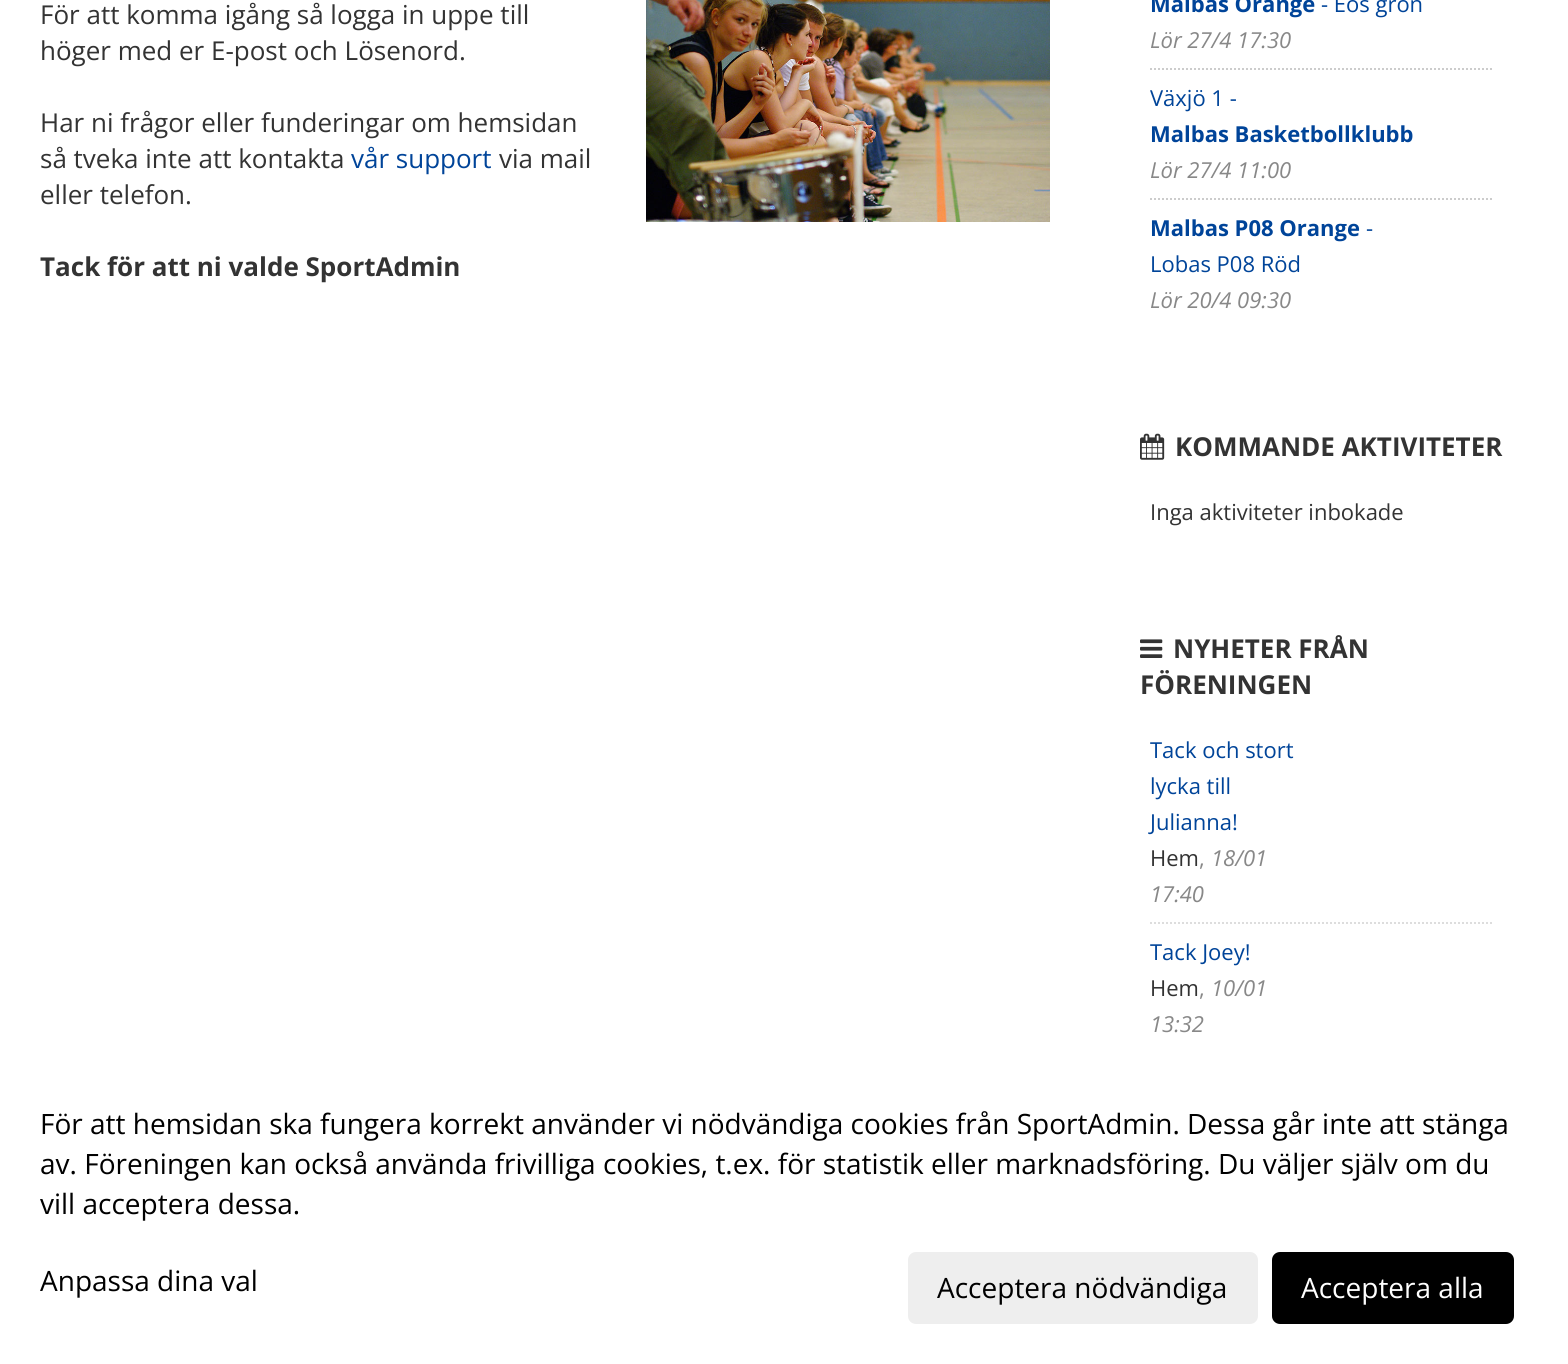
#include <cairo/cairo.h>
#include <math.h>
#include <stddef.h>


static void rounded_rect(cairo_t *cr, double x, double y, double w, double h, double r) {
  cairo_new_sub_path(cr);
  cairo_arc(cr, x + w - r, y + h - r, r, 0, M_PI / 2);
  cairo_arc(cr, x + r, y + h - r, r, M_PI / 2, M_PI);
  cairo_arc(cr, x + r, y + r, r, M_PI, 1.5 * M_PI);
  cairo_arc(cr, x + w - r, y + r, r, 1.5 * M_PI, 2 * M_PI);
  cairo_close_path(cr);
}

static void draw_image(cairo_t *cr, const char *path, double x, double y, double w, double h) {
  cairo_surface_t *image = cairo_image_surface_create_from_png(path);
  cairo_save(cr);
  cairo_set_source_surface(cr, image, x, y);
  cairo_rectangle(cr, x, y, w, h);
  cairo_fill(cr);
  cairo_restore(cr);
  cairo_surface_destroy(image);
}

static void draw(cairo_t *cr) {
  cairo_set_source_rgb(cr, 1, 1, 1);
  cairo_paint(cr);
  draw_image(cr, "images/1.png", 646, 0, 404, 222);
  cairo_new_path(cr);
  cairo_move_to(cr, 1150, 69);
  cairo_line_to(cr, 1494, 69);
  cairo_set_source_rgb(cr, 204 / 255.0, 204 / 255.0, 204 / 255.0);
  cairo_set_dash(cr, (double[]){2, 2}, 2, 0);
  cairo_stroke(cr);
  cairo_new_path(cr);
  cairo_move_to(cr, 1150, 199);
  cairo_line_to(cr, 1494, 199);
  cairo_stroke(cr);
  draw_image(cr, "images/2.png", 1140, 433, 25, 27);
  draw_image(cr, "images/3.png", 1140, 639, 23, 19);
  cairo_new_path(cr);
  cairo_move_to(cr, 1150, 923);
  cairo_line_to(cr, 1494, 923);
  cairo_set_source_rgb(cr, 221 / 255.0, 221 / 255.0, 221 / 255.0);
  cairo_stroke(cr);
  cairo_set_source_rgb(cr, 238 / 255.0, 238 / 255.0, 238 / 255.0);
  rounded_rect(cr, 908, 1252, 350, 72, 8);
  cairo_fill(cr);
  cairo_set_source_rgb(cr, 0, 0, 0);
  rounded_rect(cr, 1272, 1252, 242, 72, 8);
  cairo_fill(cr);
  cairo_select_font_face(cr, "Open Sans", CAIRO_FONT_SLANT_NORMAL, CAIRO_FONT_WEIGHT_NORMAL);
  cairo_set_font_size(cr, 26);
  cairo_set_source_rgb(cr, 51 / 255.0, 51 / 255.0, 51 / 255.0);
  cairo_move_to(cr, 40, 24);
  cairo_show_text(cr, "För att komma igång så logga in uppe till");
  cairo_move_to(cr, 40, 60);
  cairo_show_text(cr, "höger med er E-post och Lösenord.");
  cairo_move_to(cr, 40, 132);
  cairo_show_text(cr, "Har ni frågor eller funderingar om hemsidan");
  cairo_move_to(cr, 40, 168);
  cairo_show_text(cr, "så tveka inte att kontakta");
  cairo_set_source_rgb(cr, 0, 68 / 255.0, 153 / 255.0);
  cairo_move_to(cr, 351, 168);
  cairo_show_text(cr, "vår support");
  cairo_set_source_rgb(cr, 51 / 255.0, 51 / 255.0, 51 / 255.0);
  cairo_move_to(cr, 499, 168);
  cairo_show_text(cr, "via mail");
  cairo_move_to(cr, 40, 204);
  cairo_show_text(cr, "eller telefon.");
  cairo_select_font_face(cr, "Open Sans", CAIRO_FONT_SLANT_NORMAL, CAIRO_FONT_WEIGHT_BOLD);
  cairo_move_to(cr, 40, 276);
  cairo_show_text(cr, "Tack för att ni valde SportAdmin");
  cairo_set_font_size(cr, 22);
  cairo_set_source_rgb(cr, 0, 68 / 255.0, 153 / 255.0);
  cairo_move_to(cr, 1150, 12);
  cairo_show_text(cr, "Malbas Orange");
  cairo_select_font_face(cr, "Open Sans", CAIRO_FONT_SLANT_NORMAL, CAIRO_FONT_WEIGHT_NORMAL);
  cairo_move_to(cr, 1321, 12);
  cairo_show_text(cr, "- Eos grön");
  cairo_select_font_face(cr, "Open Sans", CAIRO_FONT_SLANT_ITALIC, CAIRO_FONT_WEIGHT_NORMAL);
  cairo_set_source_rgb(cr, 136 / 255.0, 136 / 255.0, 136 / 255.0);
  cairo_move_to(cr, 1150, 48);
  cairo_show_text(cr, "Lör 27/4 17:30");
  cairo_select_font_face(cr, "Open Sans", CAIRO_FONT_SLANT_NORMAL, CAIRO_FONT_WEIGHT_NORMAL);
  cairo_set_source_rgb(cr, 0, 68 / 255.0, 153 / 255.0);
  cairo_move_to(cr, 1150, 106);
  cairo_show_text(cr, "Växjö 1 -");
  cairo_select_font_face(cr, "Open Sans", CAIRO_FONT_SLANT_NORMAL, CAIRO_FONT_WEIGHT_BOLD);
  cairo_move_to(cr, 1150, 142);
  cairo_show_text(cr, "Malbas Basketbollklubb");
  cairo_select_font_face(cr, "Open Sans", CAIRO_FONT_SLANT_ITALIC, CAIRO_FONT_WEIGHT_NORMAL);
  cairo_set_source_rgb(cr, 136 / 255.0, 136 / 255.0, 136 / 255.0);
  cairo_move_to(cr, 1150, 178);
  cairo_show_text(cr, "Lör 27/4 11:00");
  cairo_select_font_face(cr, "Open Sans", CAIRO_FONT_SLANT_NORMAL, CAIRO_FONT_WEIGHT_BOLD);
  cairo_set_source_rgb(cr, 0, 68 / 255.0, 153 / 255.0);
  cairo_move_to(cr, 1150, 236);
  cairo_show_text(cr, "Malbas P08 Orange");
  cairo_select_font_face(cr, "Open Sans", CAIRO_FONT_SLANT_NORMAL, CAIRO_FONT_WEIGHT_NORMAL);
  cairo_move_to(cr, 1366, 236);
  cairo_show_text(cr, "-");
  cairo_move_to(cr, 1150, 272);
  cairo_show_text(cr, "Lobas P08 Röd");
  cairo_select_font_face(cr, "Open Sans", CAIRO_FONT_SLANT_ITALIC, CAIRO_FONT_WEIGHT_NORMAL);
  cairo_set_source_rgb(cr, 136 / 255.0, 136 / 255.0, 136 / 255.0);
  cairo_move_to(cr, 1150, 308);
  cairo_show_text(cr, "Lör 20/4 09:30");
  cairo_select_font_face(cr, "Open Sans", CAIRO_FONT_SLANT_NORMAL, CAIRO_FONT_WEIGHT_BOLD);
  cairo_set_font_size(cr, 26);
  cairo_set_source_rgb(cr, 51 / 255.0, 51 / 255.0, 51 / 255.0);
  cairo_move_to(cr, 1175, 456);
  cairo_show_text(cr, "KOMMANDE AKTIVITETER");
  cairo_select_font_face(cr, "Open Sans", CAIRO_FONT_SLANT_NORMAL, CAIRO_FONT_WEIGHT_NORMAL);
  cairo_set_font_size(cr, 22);
  cairo_move_to(cr, 1150, 520);
  cairo_show_text(cr, "Inga aktiviteter inbokade");
  cairo_select_font_face(cr, "Open Sans", CAIRO_FONT_SLANT_NORMAL, CAIRO_FONT_WEIGHT_BOLD);
  cairo_set_font_size(cr, 26);
  cairo_move_to(cr, 1173, 658);
  cairo_show_text(cr, "NYHETER FRÅN");
  cairo_move_to(cr, 1140, 694);
  cairo_show_text(cr, "FÖRENINGEN");
  cairo_select_font_face(cr, "Open Sans", CAIRO_FONT_SLANT_NORMAL, CAIRO_FONT_WEIGHT_NORMAL);
  cairo_set_font_size(cr, 22);
  cairo_set_source_rgb(cr, 0, 68 / 255.0, 153 / 255.0);
  cairo_move_to(cr, 1150, 758);
  cairo_show_text(cr, "Tack och stort");
  cairo_move_to(cr, 1150, 794);
  cairo_show_text(cr, "lycka till");
  cairo_move_to(cr, 1150, 830);
  cairo_show_text(cr, "Julianna!");
  cairo_set_source_rgb(cr, 51 / 255.0, 51 / 255.0, 51 / 255.0);
  cairo_move_to(cr, 1150, 866);
  cairo_show_text(cr, "Hem");
  cairo_set_source_rgb(cr, 136 / 255.0, 136 / 255.0, 136 / 255.0);
  cairo_move_to(cr, 1199, 866);
  cairo_show_text(cr, ",");
  cairo_select_font_face(cr, "Open Sans", CAIRO_FONT_SLANT_ITALIC, CAIRO_FONT_WEIGHT_NORMAL);
  cairo_move_to(cr, 1211, 866);
  cairo_show_text(cr, "18/01");
  cairo_move_to(cr, 1150, 902);
  cairo_show_text(cr, "17:40");
  cairo_select_font_face(cr, "Open Sans", CAIRO_FONT_SLANT_NORMAL, CAIRO_FONT_WEIGHT_NORMAL);
  cairo_set_source_rgb(cr, 0, 68 / 255.0, 153 / 255.0);
  cairo_move_to(cr, 1150, 960);
  cairo_show_text(cr, "Tack Joey!");
  cairo_set_source_rgb(cr, 51 / 255.0, 51 / 255.0, 51 / 255.0);
  cairo_move_to(cr, 1150, 996);
  cairo_show_text(cr, "Hem");
  cairo_set_source_rgb(cr, 136 / 255.0, 136 / 255.0, 136 / 255.0);
  cairo_move_to(cr, 1199, 996);
  cairo_show_text(cr, ",");
  cairo_select_font_face(cr, "Open Sans", CAIRO_FONT_SLANT_ITALIC, CAIRO_FONT_WEIGHT_NORMAL);
  cairo_move_to(cr, 1211, 996);
  cairo_show_text(cr, "10/01");
  cairo_move_to(cr, 1150, 1032);
  cairo_show_text(cr, "13:32");
  cairo_select_font_face(cr, "Open Sans", CAIRO_FONT_SLANT_NORMAL, CAIRO_FONT_WEIGHT_NORMAL);
  cairo_set_font_size(cr, 28);
  cairo_set_source_rgb(cr, 0, 0, 0);
  cairo_move_to(cr, 40, 1134);
  cairo_show_text(cr, "För att hemsidan ska fungera korrekt använder vi nödvändiga cookies från SportAdmin. Dessa går inte att stänga");
  cairo_move_to(cr, 40, 1174);
  cairo_show_text(cr, "av. Föreningen kan också använda frivilliga cookies, t.ex. för statistik eller marknadsföring. Du väljer själv om du");
  cairo_move_to(cr, 40, 1214);
  cairo_show_text(cr, "vill acceptera dessa.");
  cairo_move_to(cr, 40, 1291);
  cairo_show_text(cr, "Anpassa dina val");
  cairo_move_to(cr, 937, 1298);
  cairo_show_text(cr, "Acceptera nödvändiga");
  cairo_set_source_rgb(cr, 1, 1, 1);
  cairo_move_to(cr, 1301, 1298);
  cairo_show_text(cr, "Acceptera alla");
}

int main(void) {
  cairo_surface_t *surface = cairo_image_surface_create(CAIRO_FORMAT_RGB24, 1568, 1364);
  cairo_t *cr = cairo_create(surface);
  cairo_font_options_t *options = cairo_font_options_create();
  cairo_font_options_set_hint_metrics(options, CAIRO_HINT_METRICS_OFF);
  cairo_font_options_set_hint_style(options, CAIRO_HINT_STYLE_NONE);
  cairo_set_font_options(cr, options);
  cairo_set_miter_limit(cr, 4);
  draw(cr);
  cairo_surface_write_to_png(surface, "out.png");
  cairo_font_options_destroy(options);
  cairo_destroy(cr);
  cairo_surface_destroy(surface);
  return 0;
}
